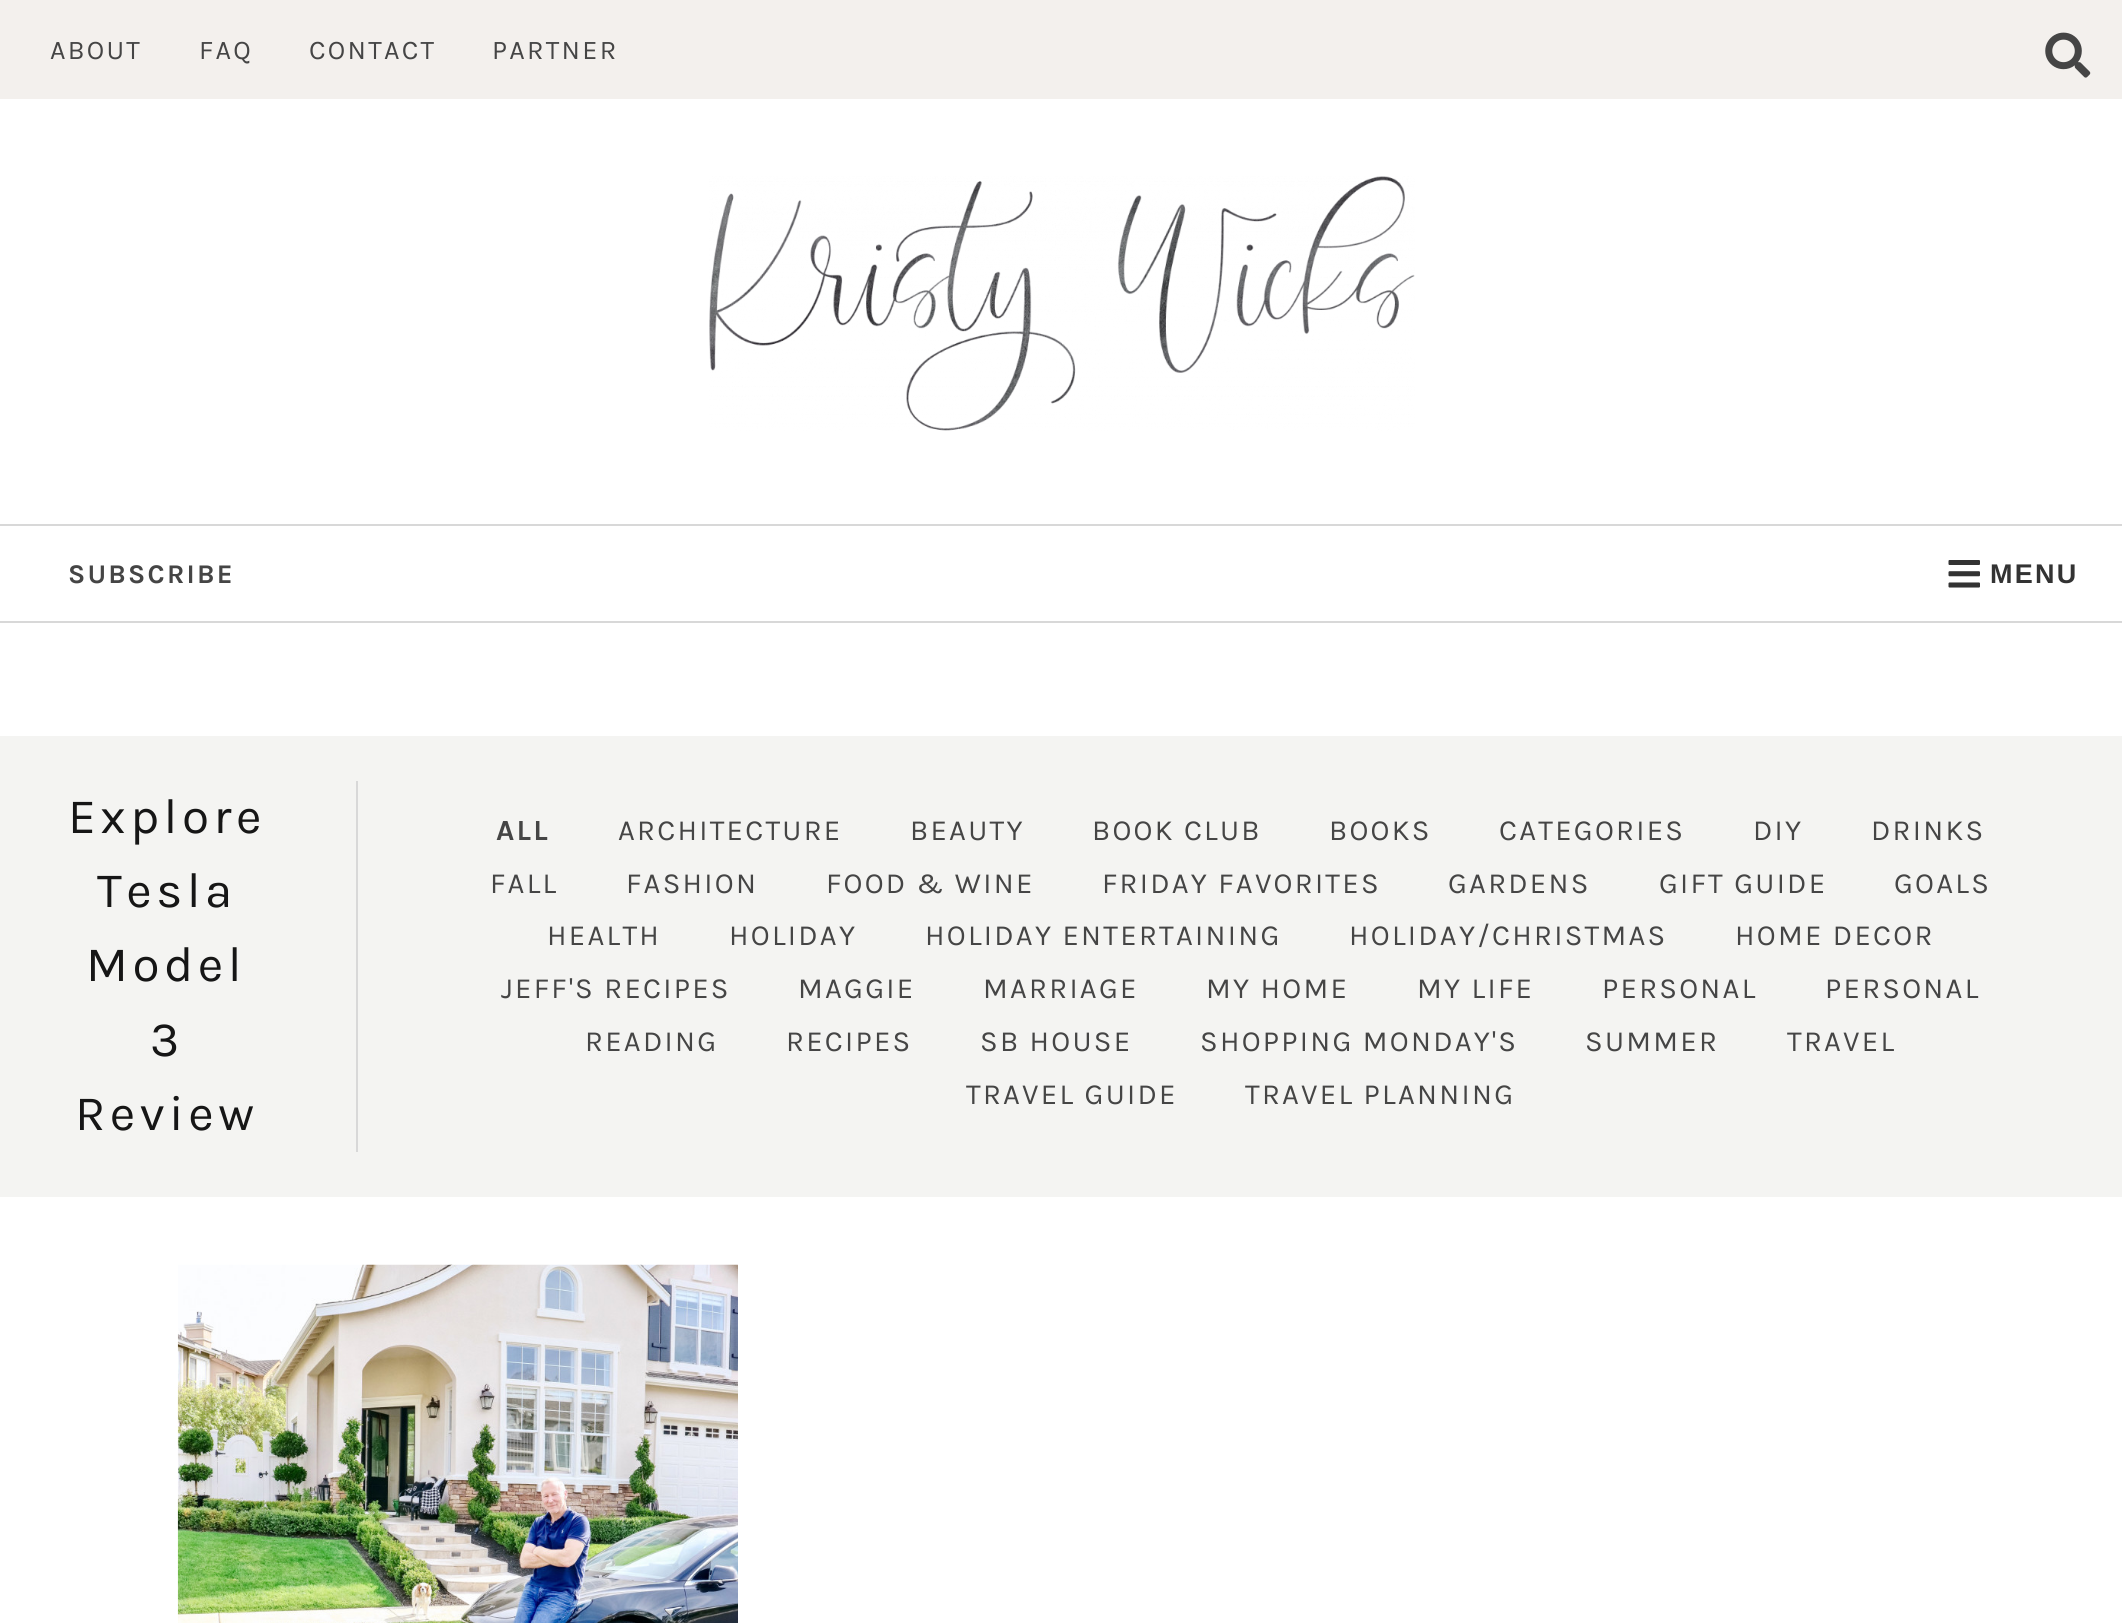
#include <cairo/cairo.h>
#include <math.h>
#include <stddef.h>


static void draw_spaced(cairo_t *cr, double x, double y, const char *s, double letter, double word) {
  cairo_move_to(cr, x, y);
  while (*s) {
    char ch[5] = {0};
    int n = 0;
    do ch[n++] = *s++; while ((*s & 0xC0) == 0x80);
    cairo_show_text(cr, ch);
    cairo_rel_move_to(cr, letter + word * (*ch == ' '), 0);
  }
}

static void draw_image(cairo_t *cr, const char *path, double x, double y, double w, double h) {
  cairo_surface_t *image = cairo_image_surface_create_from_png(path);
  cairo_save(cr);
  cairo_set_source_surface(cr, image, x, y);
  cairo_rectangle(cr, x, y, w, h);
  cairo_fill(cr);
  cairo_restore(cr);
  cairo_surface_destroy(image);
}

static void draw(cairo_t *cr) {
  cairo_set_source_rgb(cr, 1, 1, 1);
  cairo_paint(cr);
  cairo_set_source_rgb(cr, 243 / 255.0, 240 / 255.0, 237 / 255.0);
  cairo_rectangle(cr, 0, 0, 2122, 99);
  cairo_fill(cr);
  draw_image(cr, "images/1.png", 2045, 32, 46, 46);
  draw_image(cr, "images/2.png", 709, 176, 706, 255);
  cairo_set_source_rgb(cr, 216 / 255.0, 216 / 255.0, 216 / 255.0);
  cairo_rectangle(cr, 0, 524, 2122, 2);
  cairo_fill(cr);
  cairo_rectangle(cr, 0, 621, 2122, 2);
  cairo_fill(cr);
  draw_image(cr, "images/3.png", 1948, 560, 32, 28);
  cairo_set_source_rgb(cr, 244 / 255.0, 244 / 255.0, 242 / 255.0);
  cairo_rectangle(cr, 0, 736, 2122, 461);
  cairo_fill(cr);
  cairo_set_source_rgb(cr, 216 / 255.0, 216 / 255.0, 216 / 255.0);
  cairo_rectangle(cr, 356, 781, 2, 371);
  cairo_fill(cr);
  draw_image(cr, "images/4.png", 177, 1264, 561, 359);
  cairo_select_font_face(cr, "Karla", CAIRO_FONT_SLANT_NORMAL, CAIRO_FONT_WEIGHT_NORMAL);
  cairo_set_font_size(cr, 27);
  cairo_set_source_rgb(cr, 69 / 255.0, 69 / 255.0, 69 / 255.0);
  draw_spaced(cr, 50, 59, "ABOUT", 2.25, 0);
  draw_spaced(cr, 199, 59, "FAQ", 2.25, 0);
  draw_spaced(cr, 309, 59, "CONTACT", 2.25, 0);
  draw_spaced(cr, 492, 59, "PARTNER", 2.25, 0);
  cairo_select_font_face(cr, "Karla", CAIRO_FONT_SLANT_NORMAL, CAIRO_FONT_WEIGHT_BOLD);
  draw_spaced(cr, 68, 583, "SUBSCRIBE", 2.25, 0);
  cairo_select_font_face(cr, "Liberation Sans", CAIRO_FONT_SLANT_NORMAL, CAIRO_FONT_WEIGHT_BOLD);
  cairo_set_source_rgb(cr, 51 / 255.0, 51 / 255.0, 51 / 255.0);
  draw_spaced(cr, 1990, 583, "MENU", 2.25, 0);
  cairo_select_font_face(cr, "Karla", CAIRO_FONT_SLANT_NORMAL, CAIRO_FONT_WEIGHT_NORMAL);
  cairo_set_font_size(cr, 49.5);
  cairo_set_source_rgb(cr, 22 / 255.0, 22 / 255.0, 22 / 255.0);
  draw_spaced(cr, 68, 833, "Explore", 4.5, 0);
  draw_spaced(cr, 97, 907, "Tesla", 4.5, 0);
  draw_spaced(cr, 86, 981, "Model", 4.5, 0);
  draw_spaced(cr, 150, 1056, "3", 4.5, 0);
  draw_spaced(cr, 75, 1130, "Review", 4.5, 0);
  cairo_select_font_face(cr, "Karla", CAIRO_FONT_SLANT_NORMAL, CAIRO_FONT_WEIGHT_BOLD);
  cairo_set_font_size(cr, 29.25);
  cairo_set_source_rgb(cr, 69 / 255.0, 69 / 255.0, 69 / 255.0);
  draw_spaced(cr, 496, 840, "ALL", 2.25, 0);
  cairo_select_font_face(cr, "Karla", CAIRO_FONT_SLANT_NORMAL, CAIRO_FONT_WEIGHT_NORMAL);
  draw_spaced(cr, 618, 840, "ARCHITECTURE", 2.25, 0);
  draw_spaced(cr, 910, 840, "BEAUTY", 2.25, 0);
  draw_spaced(cr, 1092, 840, "BOOK CLUB", 2.25, 0);
  draw_spaced(cr, 1329, 840, "BOOKS", 2.25, 0);
  draw_spaced(cr, 1499, 840, "CATEGORIES", 2.25, 0);
  draw_spaced(cr, 1753, 840, "DIY", 2.25, 0);
  draw_spaced(cr, 1871, 840, "DRINKS", 2.25, 0);
  draw_spaced(cr, 490, 893, "FALL", 2.25, 0);
  draw_spaced(cr, 626, 893, "FASHION", 2.25, 0);
  draw_spaced(cr, 826, 893, "FOOD & WINE", 2.25, 0);
  draw_spaced(cr, 1102, 893, "FRIDAY FAVORITES", 2.25, 0);
  draw_spaced(cr, 1448, 893, "GARDENS", 2.25, 0);
  draw_spaced(cr, 1659, 893, "GIFT GUIDE", 2.25, 0);
  draw_spaced(cr, 1894, 893, "GOALS", 2.25, 0);
  draw_spaced(cr, 547, 945, "HEALTH", 2.25, 0);
  draw_spaced(cr, 729, 945, "HOLIDAY", 2.25, 0);
  draw_spaced(cr, 925, 945, "HOLIDAY ENTERTAINING", 2.25, 0);
  draw_spaced(cr, 1349, 945, "HOLIDAY/CHRISTMAS", 2.25, 0);
  draw_spaced(cr, 1735, 945, "HOME DECOR", 2.25, 0);
  draw_spaced(cr, 501, 998, "JEFF'S RECIPES", 2.25, 0);
  draw_spaced(cr, 798, 998, "MAGGIE", 2.25, 0);
  draw_spaced(cr, 983, 998, "MARRIAGE", 2.25, 0);
  draw_spaced(cr, 1206, 998, "MY HOME", 2.25, 0);
  draw_spaced(cr, 1417, 998, "MY LIFE", 2.25, 0);
  draw_spaced(cr, 1602, 998, "PERSONAL", 2.25, 0);
  draw_spaced(cr, 1825, 998, "PERSONAL", 2.25, 0);
  draw_spaced(cr, 585, 1051, "READING", 2.25, 0);
  draw_spaced(cr, 786, 1051, "RECIPES", 2.25, 0);
  draw_spaced(cr, 980, 1051, "SB HOUSE", 2.25, 0);
  draw_spaced(cr, 1200, 1051, "SHOPPING MONDAY'S", 2.25, 0);
  draw_spaced(cr, 1585, 1051, "SUMMER", 2.25, 0);
  draw_spaced(cr, 1787, 1051, "TRAVEL", 2.25, 0);
  draw_spaced(cr, 966, 1104, "TRAVEL GUIDE", 2.25, 0);
  draw_spaced(cr, 1245, 1104, "TRAVEL PLANNING", 2.25, 0);
}

int main(void) {
  cairo_surface_t *surface = cairo_image_surface_create(CAIRO_FORMAT_RGB24, 2122, 1623);
  cairo_t *cr = cairo_create(surface);
  cairo_font_options_t *options = cairo_font_options_create();
  cairo_font_options_set_hint_metrics(options, CAIRO_HINT_METRICS_OFF);
  cairo_font_options_set_hint_style(options, CAIRO_HINT_STYLE_NONE);
  cairo_set_font_options(cr, options);
  cairo_set_miter_limit(cr, 4);
  draw(cr);
  cairo_surface_write_to_png(surface, "out.png");
  cairo_font_options_destroy(options);
  cairo_destroy(cr);
  cairo_surface_destroy(surface);
  return 0;
}
